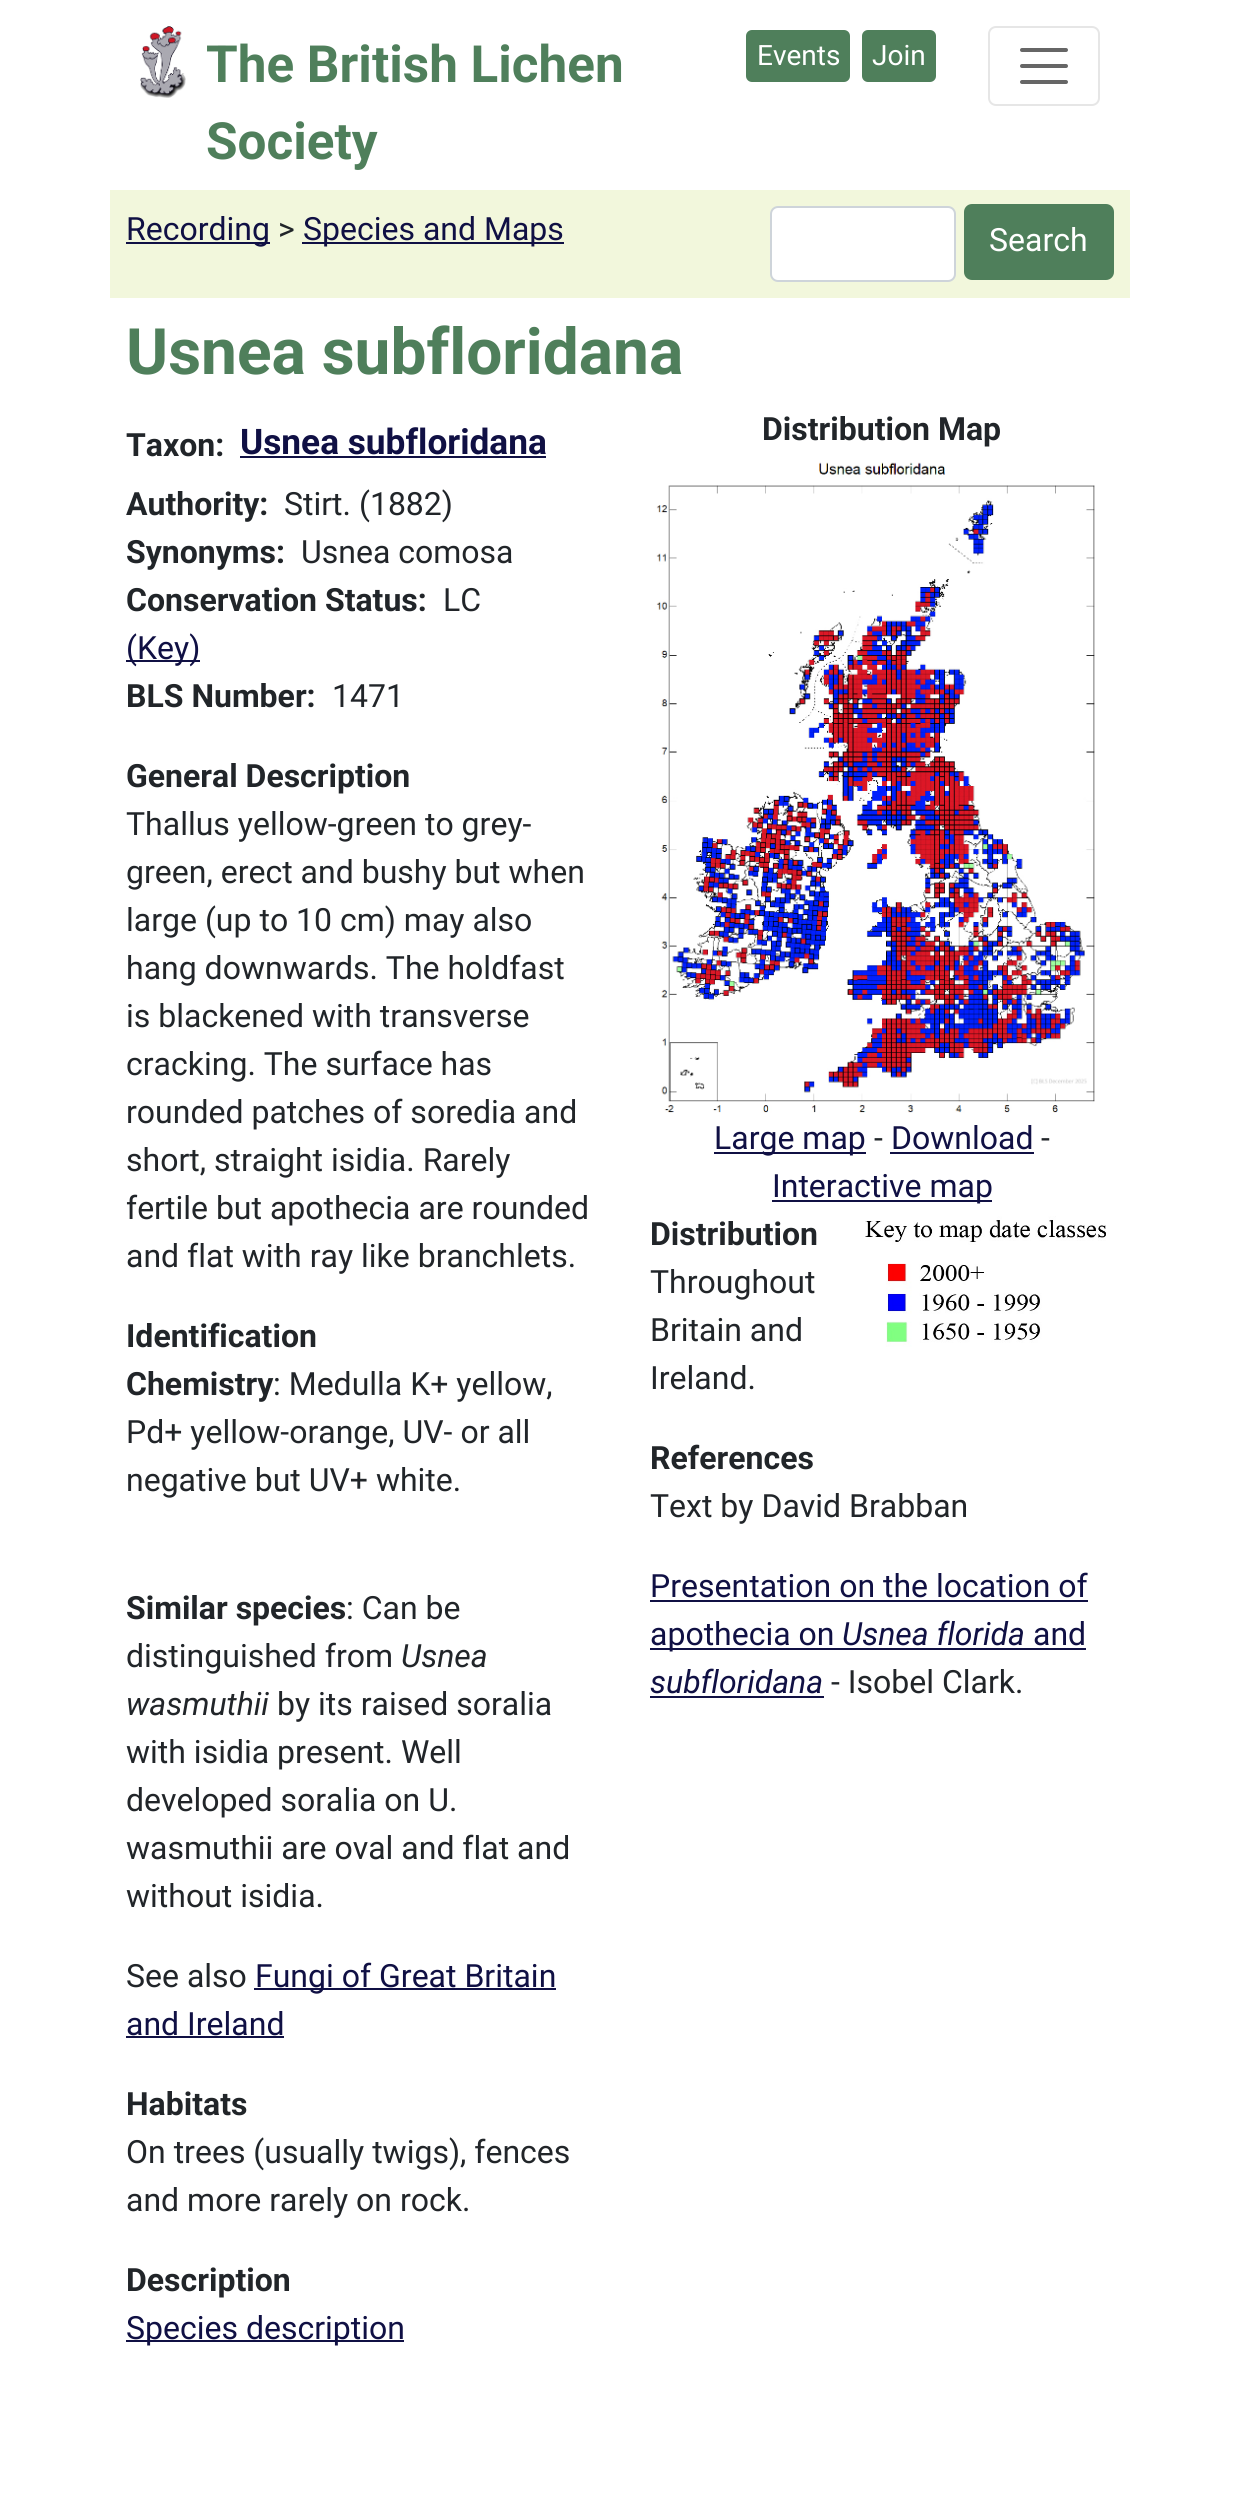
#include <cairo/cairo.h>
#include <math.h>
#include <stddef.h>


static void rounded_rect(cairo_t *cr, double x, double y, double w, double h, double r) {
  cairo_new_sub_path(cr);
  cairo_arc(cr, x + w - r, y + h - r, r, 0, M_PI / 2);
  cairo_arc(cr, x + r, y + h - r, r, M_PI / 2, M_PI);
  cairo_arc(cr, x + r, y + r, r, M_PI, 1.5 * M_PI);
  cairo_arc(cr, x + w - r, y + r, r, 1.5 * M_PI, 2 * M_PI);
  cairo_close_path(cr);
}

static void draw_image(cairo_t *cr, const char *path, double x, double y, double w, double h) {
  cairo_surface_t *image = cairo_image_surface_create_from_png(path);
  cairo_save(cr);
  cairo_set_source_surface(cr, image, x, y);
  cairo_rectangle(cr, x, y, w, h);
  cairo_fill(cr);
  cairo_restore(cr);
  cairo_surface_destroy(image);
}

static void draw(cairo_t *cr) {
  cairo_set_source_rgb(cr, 1, 1, 1);
  cairo_paint(cr);
  draw_image(cr, "images/1.png", 140, 26, 46, 72);
  cairo_set_source_rgb(cr, 79 / 255.0, 127 / 255.0, 91 / 255.0);
  rounded_rect(cr, 747, 31, 102, 50, 5);
  cairo_fill_preserve(cr);
  cairo_stroke(cr);
  rounded_rect(cr, 863, 31, 72, 50, 5);
  cairo_fill_preserve(cr);
  cairo_stroke(cr);
  rounded_rect(cr, 989, 27, 110, 78, 7);
  cairo_set_source_rgb(cr, 230 / 255.0, 230 / 255.0, 230 / 255.0);
  cairo_stroke(cr);
  cairo_new_path(cr);
  cairo_move_to(cr, 1022, 50);
  cairo_line_to(cr, 1066, 50);
  cairo_move_to(cr, 1022, 66);
  cairo_line_to(cr, 1066, 66);
  cairo_move_to(cr, 1022, 82);
  cairo_line_to(cr, 1066, 82);
  cairo_set_source_rgb(cr, 102 / 255.0, 102 / 255.0, 102 / 255.0);
  cairo_set_line_width(cr, 4);
  cairo_set_line_cap(cr, CAIRO_LINE_CAP_ROUND);
  cairo_stroke(cr);
  cairo_set_source_rgb(cr, 242 / 255.0, 247 / 255.0, 220 / 255.0);
  cairo_rectangle(cr, 110, 190, 1020, 108);
  cairo_fill(cr);
  cairo_set_source_rgb(cr, 16 / 255.0, 16 / 255.0, 68 / 255.0);
  cairo_rectangle(cr, 126, 242, 144, 2);
  cairo_fill(cr);
  cairo_rectangle(cr, 302, 242, 262, 2);
  cairo_fill(cr);
  cairo_set_source_rgb(cr, 1, 1, 1);
  rounded_rect(cr, 771, 207, 184, 74, 7);
  cairo_fill_preserve(cr);
  cairo_set_source_rgb(cr, 206 / 255.0, 212 / 255.0, 218 / 255.0);
  cairo_set_line_width(cr, 2);
  cairo_set_line_cap(cr, CAIRO_LINE_CAP_BUTT);
  cairo_stroke(cr);
  cairo_set_source_rgb(cr, 79 / 255.0, 127 / 255.0, 91 / 255.0);
  rounded_rect(cr, 965, 205, 148, 74, 7);
  cairo_fill_preserve(cr);
  cairo_stroke(cr);
  cairo_set_source_rgb(cr, 16 / 255.0, 16 / 255.0, 68 / 255.0);
  cairo_rectangle(cr, 240, 456, 306, 2);
  cairo_fill(cr);
  cairo_rectangle(cr, 126, 660, 74, 2);
  cairo_fill(cr);
  cairo_rectangle(cr, 254, 1988, 302, 2);
  cairo_fill(cr);
  cairo_rectangle(cr, 126, 2036, 158, 2);
  cairo_fill(cr);
  draw_image(cr, "images/2.png", 656, 462, 439, 651);
  cairo_rectangle(cr, 714, 1152, 152, 2);
  cairo_fill(cr);
  cairo_rectangle(cr, 890, 1152, 144, 2);
  cairo_fill(cr);
  cairo_rectangle(cr, 772, 1200, 220, 2);
  cairo_fill(cr);
  draw_image(cr, "images/3.png", 865, 1216, 241, 131);
  cairo_rectangle(cr, 650, 1600, 438, 2);
  cairo_fill(cr);
  cairo_rectangle(cr, 650, 1648, 436, 2);
  cairo_fill(cr);
  cairo_rectangle(cr, 650, 1696, 174, 2);
  cairo_fill(cr);
  cairo_rectangle(cr, 126, 2340, 278, 2);
  cairo_fill(cr);
  cairo_select_font_face(cr, "Roboto", CAIRO_FONT_SLANT_NORMAL, CAIRO_FONT_WEIGHT_BOLD);
  cairo_set_font_size(cr, 51.25);
  cairo_set_source_rgb(cr, 79 / 255.0, 127 / 255.0, 91 / 255.0);
  cairo_move_to(cr, 206, 82);
  cairo_show_text(cr, "The British Lichen");
  cairo_move_to(cr, 206, 159);
  cairo_show_text(cr, "Society");
  cairo_select_font_face(cr, "Roboto", CAIRO_FONT_SLANT_NORMAL, CAIRO_FONT_WEIGHT_NORMAL);
  cairo_set_font_size(cr, 28);
  cairo_set_source_rgb(cr, 1, 1, 1);
  cairo_move_to(cr, 757, 65);
  cairo_show_text(cr, "Events");
  cairo_move_to(cr, 872, 65);
  cairo_show_text(cr, "Join");
  cairo_set_font_size(cr, 32);
  cairo_set_source_rgb(cr, 16 / 255.0, 16 / 255.0, 68 / 255.0);
  cairo_move_to(cr, 126, 240);
  cairo_show_text(cr, "Recording");
  cairo_set_source_rgb(cr, 33 / 255.0, 37 / 255.0, 41 / 255.0);
  cairo_move_to(cr, 278, 240);
  cairo_show_text(cr, ">");
  cairo_set_source_rgb(cr, 16 / 255.0, 16 / 255.0, 68 / 255.0);
  cairo_move_to(cr, 303, 240);
  cairo_show_text(cr, "Species and Maps");
  cairo_set_source_rgb(cr, 1, 1, 1);
  cairo_move_to(cr, 989, 251);
  cairo_show_text(cr, "Search");
  cairo_select_font_face(cr, "Roboto", CAIRO_FONT_SLANT_NORMAL, CAIRO_FONT_WEIGHT_BOLD);
  cairo_set_font_size(cr, 64);
  cairo_set_source_rgb(cr, 79 / 255.0, 127 / 255.0, 91 / 255.0);
  cairo_move_to(cr, 126, 374);
  cairo_show_text(cr, "Usnea subfloridana");
  cairo_set_font_size(cr, 35.25);
  cairo_set_source_rgb(cr, 16 / 255.0, 16 / 255.0, 68 / 255.0);
  cairo_move_to(cr, 240, 454);
  cairo_show_text(cr, "Usnea subfloridana");
  cairo_set_font_size(cr, 32);
  cairo_set_source_rgb(cr, 33 / 255.0, 37 / 255.0, 41 / 255.0);
  cairo_move_to(cr, 126, 515);
  cairo_show_text(cr, "Authority:");
  cairo_select_font_face(cr, "Roboto", CAIRO_FONT_SLANT_NORMAL, CAIRO_FONT_WEIGHT_NORMAL);
  cairo_move_to(cr, 284, 515);
  cairo_show_text(cr, "Stirt. (1882)");
  cairo_select_font_face(cr, "Roboto", CAIRO_FONT_SLANT_NORMAL, CAIRO_FONT_WEIGHT_BOLD);
  cairo_move_to(cr, 126, 563);
  cairo_show_text(cr, "Synonyms:");
  cairo_select_font_face(cr, "Roboto", CAIRO_FONT_SLANT_NORMAL, CAIRO_FONT_WEIGHT_NORMAL);
  cairo_move_to(cr, 301, 563);
  cairo_show_text(cr, "Usnea comosa");
  cairo_select_font_face(cr, "Roboto", CAIRO_FONT_SLANT_NORMAL, CAIRO_FONT_WEIGHT_BOLD);
  cairo_move_to(cr, 126, 611);
  cairo_show_text(cr, "Conservation Status:");
  cairo_select_font_face(cr, "Roboto", CAIRO_FONT_SLANT_NORMAL, CAIRO_FONT_WEIGHT_NORMAL);
  cairo_move_to(cr, 443, 611);
  cairo_show_text(cr, "LC");
  cairo_set_source_rgb(cr, 16 / 255.0, 16 / 255.0, 68 / 255.0);
  cairo_move_to(cr, 126, 659);
  cairo_show_text(cr, "(Key)");
  cairo_select_font_face(cr, "Roboto", CAIRO_FONT_SLANT_NORMAL, CAIRO_FONT_WEIGHT_BOLD);
  cairo_set_source_rgb(cr, 33 / 255.0, 37 / 255.0, 41 / 255.0);
  cairo_move_to(cr, 126, 707);
  cairo_show_text(cr, "BLS Number:");
  cairo_select_font_face(cr, "Roboto", CAIRO_FONT_SLANT_NORMAL, CAIRO_FONT_WEIGHT_NORMAL);
  cairo_move_to(cr, 332, 707);
  cairo_show_text(cr, "1471");
  cairo_select_font_face(cr, "Roboto", CAIRO_FONT_SLANT_NORMAL, CAIRO_FONT_WEIGHT_BOLD);
  cairo_move_to(cr, 126, 456);
  cairo_show_text(cr, "Taxon:");
  cairo_move_to(cr, 126, 787);
  cairo_show_text(cr, "General Description");
  cairo_select_font_face(cr, "Roboto", CAIRO_FONT_SLANT_NORMAL, CAIRO_FONT_WEIGHT_NORMAL);
  cairo_move_to(cr, 126, 835);
  cairo_show_text(cr, "Thallus yellow-green to grey-");
  cairo_move_to(cr, 126, 883);
  cairo_show_text(cr, "green, erect and bushy but when");
  cairo_move_to(cr, 126, 931);
  cairo_show_text(cr, "large (up to 10 cm) may also");
  cairo_move_to(cr, 126, 979);
  cairo_show_text(cr, "hang downwards. The holdfast");
  cairo_move_to(cr, 126, 1027);
  cairo_show_text(cr, "is blackened with transverse");
  cairo_move_to(cr, 126, 1075);
  cairo_show_text(cr, "cracking. The surface has");
  cairo_move_to(cr, 126, 1123);
  cairo_show_text(cr, "rounded patches of soredia and");
  cairo_move_to(cr, 126, 1171);
  cairo_show_text(cr, "short, straight isidia. Rarely");
  cairo_move_to(cr, 126, 1219);
  cairo_show_text(cr, "fertile but apothecia are rounded");
  cairo_move_to(cr, 126, 1267);
  cairo_show_text(cr, "and flat with ray like branchlets.");
  cairo_select_font_face(cr, "Roboto", CAIRO_FONT_SLANT_NORMAL, CAIRO_FONT_WEIGHT_BOLD);
  cairo_move_to(cr, 126, 1347);
  cairo_show_text(cr, "Identification");
  cairo_move_to(cr, 126, 1395);
  cairo_show_text(cr, "Chemistry");
  cairo_select_font_face(cr, "Roboto", CAIRO_FONT_SLANT_NORMAL, CAIRO_FONT_WEIGHT_NORMAL);
  cairo_move_to(cr, 273, 1395);
  cairo_show_text(cr, ": Medulla K+ yellow,");
  cairo_move_to(cr, 126, 1443);
  cairo_show_text(cr, "Pd+ yellow-orange, UV- or all");
  cairo_move_to(cr, 126, 1491);
  cairo_show_text(cr, "negative but UV+ white.");
  cairo_select_font_face(cr, "Roboto", CAIRO_FONT_SLANT_NORMAL, CAIRO_FONT_WEIGHT_BOLD);
  cairo_move_to(cr, 126, 1619);
  cairo_show_text(cr, "Similar species");
  cairo_select_font_face(cr, "Roboto", CAIRO_FONT_SLANT_NORMAL, CAIRO_FONT_WEIGHT_NORMAL);
  cairo_move_to(cr, 346, 1619);
  cairo_show_text(cr, ": Can be");
  cairo_move_to(cr, 126, 1667);
  cairo_show_text(cr, "distinguished from");
  cairo_select_font_face(cr, "Roboto", CAIRO_FONT_SLANT_ITALIC, CAIRO_FONT_WEIGHT_NORMAL);
  cairo_move_to(cr, 401, 1667);
  cairo_show_text(cr, "Usnea");
  cairo_move_to(cr, 126, 1715);
  cairo_show_text(cr, "wasmuthii");
  cairo_select_font_face(cr, "Roboto", CAIRO_FONT_SLANT_NORMAL, CAIRO_FONT_WEIGHT_NORMAL);
  cairo_move_to(cr, 277, 1715);
  cairo_show_text(cr, "by its raised soralia");
  cairo_move_to(cr, 126, 1763);
  cairo_show_text(cr, "with isidia present. Well");
  cairo_move_to(cr, 126, 1811);
  cairo_show_text(cr, "developed soralia on U.");
  cairo_move_to(cr, 126, 1859);
  cairo_show_text(cr, "wasmuthii are oval and flat and");
  cairo_move_to(cr, 126, 1907);
  cairo_show_text(cr, "without isidia.");
  cairo_move_to(cr, 126, 1987);
  cairo_show_text(cr, "See also");
  cairo_set_source_rgb(cr, 16 / 255.0, 16 / 255.0, 68 / 255.0);
  cairo_move_to(cr, 255, 1987);
  cairo_show_text(cr, "Fungi of Great Britain");
  cairo_move_to(cr, 126, 2035);
  cairo_show_text(cr, "and Ireland");
  cairo_select_font_face(cr, "Roboto", CAIRO_FONT_SLANT_NORMAL, CAIRO_FONT_WEIGHT_BOLD);
  cairo_set_source_rgb(cr, 33 / 255.0, 37 / 255.0, 41 / 255.0);
  cairo_move_to(cr, 126, 2115);
  cairo_show_text(cr, "Habitats");
  cairo_select_font_face(cr, "Roboto", CAIRO_FONT_SLANT_NORMAL, CAIRO_FONT_WEIGHT_NORMAL);
  cairo_move_to(cr, 126, 2163);
  cairo_show_text(cr, "On trees (usually twigs), fences");
  cairo_move_to(cr, 126, 2211);
  cairo_show_text(cr, "and more rarely on rock.");
  cairo_select_font_face(cr, "Roboto", CAIRO_FONT_SLANT_NORMAL, CAIRO_FONT_WEIGHT_BOLD);
  cairo_move_to(cr, 762, 440);
  cairo_show_text(cr, "Distribution Map");
  cairo_select_font_face(cr, "Roboto", CAIRO_FONT_SLANT_NORMAL, CAIRO_FONT_WEIGHT_NORMAL);
  cairo_set_source_rgb(cr, 16 / 255.0, 16 / 255.0, 68 / 255.0);
  cairo_move_to(cr, 714, 1149);
  cairo_show_text(cr, "Large map");
  cairo_set_source_rgb(cr, 33 / 255.0, 37 / 255.0, 41 / 255.0);
  cairo_move_to(cr, 874, 1149);
  cairo_show_text(cr, "-");
  cairo_set_source_rgb(cr, 16 / 255.0, 16 / 255.0, 68 / 255.0);
  cairo_move_to(cr, 891, 1149);
  cairo_show_text(cr, "Download");
  cairo_set_source_rgb(cr, 33 / 255.0, 37 / 255.0, 41 / 255.0);
  cairo_move_to(cr, 1041, 1149);
  cairo_show_text(cr, "-");
  cairo_set_source_rgb(cr, 16 / 255.0, 16 / 255.0, 68 / 255.0);
  cairo_move_to(cr, 772, 1197);
  cairo_show_text(cr, "Interactive map");
  cairo_select_font_face(cr, "Roboto", CAIRO_FONT_SLANT_NORMAL, CAIRO_FONT_WEIGHT_BOLD);
  cairo_set_source_rgb(cr, 33 / 255.0, 37 / 255.0, 41 / 255.0);
  cairo_move_to(cr, 650, 1245);
  cairo_show_text(cr, "Distribution");
  cairo_select_font_face(cr, "Roboto", CAIRO_FONT_SLANT_NORMAL, CAIRO_FONT_WEIGHT_NORMAL);
  cairo_move_to(cr, 650, 1293);
  cairo_show_text(cr, "Throughout");
  cairo_move_to(cr, 650, 1341);
  cairo_show_text(cr, "Britain and");
  cairo_move_to(cr, 650, 1389);
  cairo_show_text(cr, "Ireland.");
  cairo_select_font_face(cr, "Roboto", CAIRO_FONT_SLANT_NORMAL, CAIRO_FONT_WEIGHT_BOLD);
  cairo_move_to(cr, 650, 1469);
  cairo_show_text(cr, "References");
  cairo_select_font_face(cr, "Roboto", CAIRO_FONT_SLANT_NORMAL, CAIRO_FONT_WEIGHT_NORMAL);
  cairo_move_to(cr, 650, 1517);
  cairo_show_text(cr, "Text by David Brabban");
  cairo_set_source_rgb(cr, 16 / 255.0, 16 / 255.0, 68 / 255.0);
  cairo_move_to(cr, 650, 1597);
  cairo_show_text(cr, "Presentation on the location of");
  cairo_move_to(cr, 650, 1645);
  cairo_show_text(cr, "apothecia on");
  cairo_select_font_face(cr, "Roboto", CAIRO_FONT_SLANT_ITALIC, CAIRO_FONT_WEIGHT_NORMAL);
  cairo_move_to(cr, 842, 1645);
  cairo_show_text(cr, "Usnea florida");
  cairo_select_font_face(cr, "Roboto", CAIRO_FONT_SLANT_NORMAL, CAIRO_FONT_WEIGHT_NORMAL);
  cairo_move_to(cr, 1033, 1645);
  cairo_show_text(cr, "and");
  cairo_select_font_face(cr, "Roboto", CAIRO_FONT_SLANT_ITALIC, CAIRO_FONT_WEIGHT_NORMAL);
  cairo_move_to(cr, 650, 1693);
  cairo_show_text(cr, "subfloridana");
  cairo_select_font_face(cr, "Roboto", CAIRO_FONT_SLANT_NORMAL, CAIRO_FONT_WEIGHT_NORMAL);
  cairo_set_source_rgb(cr, 33 / 255.0, 37 / 255.0, 41 / 255.0);
  cairo_move_to(cr, 831, 1693);
  cairo_show_text(cr, "- Isobel Clark.");
  cairo_select_font_face(cr, "Roboto", CAIRO_FONT_SLANT_NORMAL, CAIRO_FONT_WEIGHT_BOLD);
  cairo_move_to(cr, 126, 2291);
  cairo_show_text(cr, "Description");
  cairo_select_font_face(cr, "Roboto", CAIRO_FONT_SLANT_NORMAL, CAIRO_FONT_WEIGHT_NORMAL);
  cairo_set_source_rgb(cr, 16 / 255.0, 16 / 255.0, 68 / 255.0);
  cairo_move_to(cr, 126, 2339);
  cairo_show_text(cr, "Species description");
}

int main(void) {
  cairo_surface_t *surface = cairo_image_surface_create(CAIRO_FORMAT_RGB24, 1239, 2514);
  cairo_t *cr = cairo_create(surface);
  cairo_font_options_t *options = cairo_font_options_create();
  cairo_font_options_set_hint_metrics(options, CAIRO_HINT_METRICS_OFF);
  cairo_font_options_set_hint_style(options, CAIRO_HINT_STYLE_NONE);
  cairo_set_font_options(cr, options);
  cairo_set_miter_limit(cr, 4);
  draw(cr);
  cairo_surface_write_to_png(surface, "out.png");
  cairo_font_options_destroy(options);
  cairo_destroy(cr);
  cairo_surface_destroy(surface);
  return 0;
}
